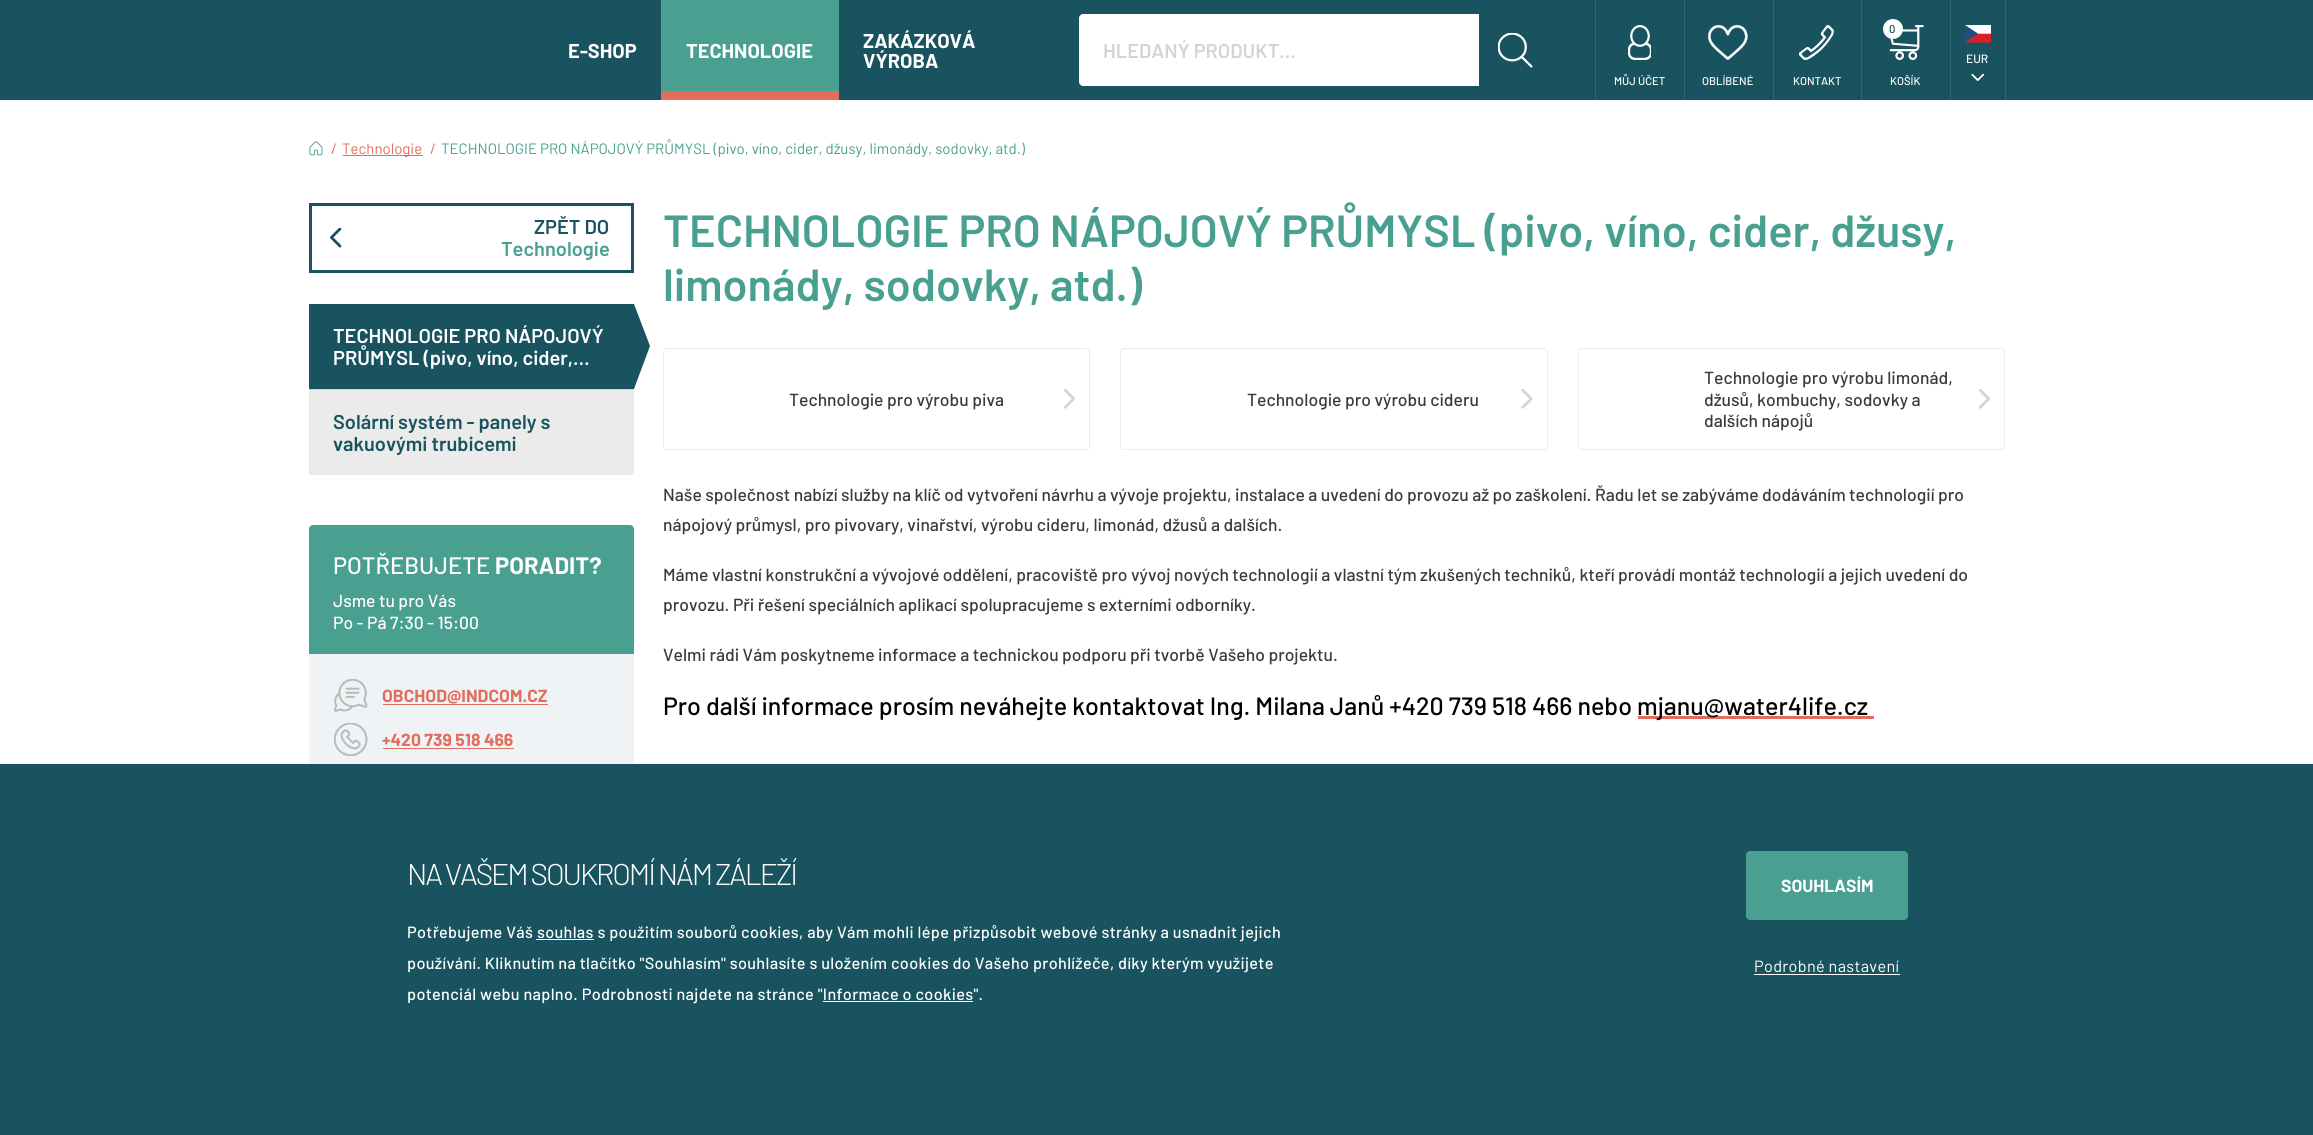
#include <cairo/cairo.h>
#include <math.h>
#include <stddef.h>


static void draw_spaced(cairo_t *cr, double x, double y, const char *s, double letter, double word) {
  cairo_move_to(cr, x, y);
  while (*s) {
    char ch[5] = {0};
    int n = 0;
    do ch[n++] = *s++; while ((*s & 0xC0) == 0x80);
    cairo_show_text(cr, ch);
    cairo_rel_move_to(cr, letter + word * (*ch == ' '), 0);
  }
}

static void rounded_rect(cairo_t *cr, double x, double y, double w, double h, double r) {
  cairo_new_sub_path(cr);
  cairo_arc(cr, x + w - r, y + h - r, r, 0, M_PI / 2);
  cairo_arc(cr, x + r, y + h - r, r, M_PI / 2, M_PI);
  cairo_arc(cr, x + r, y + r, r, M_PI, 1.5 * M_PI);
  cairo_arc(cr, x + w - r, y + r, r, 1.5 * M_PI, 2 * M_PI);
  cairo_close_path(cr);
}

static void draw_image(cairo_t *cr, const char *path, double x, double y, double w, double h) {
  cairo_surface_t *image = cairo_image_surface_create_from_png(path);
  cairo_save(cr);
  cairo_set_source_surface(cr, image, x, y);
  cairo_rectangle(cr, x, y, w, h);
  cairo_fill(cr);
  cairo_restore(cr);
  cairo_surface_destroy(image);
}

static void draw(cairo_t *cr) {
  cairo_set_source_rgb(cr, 1, 1, 1);
  cairo_paint(cr);
  cairo_set_source_rgb(cr, 25 / 255.0, 83 / 255.0, 95 / 255.0);
  cairo_rectangle(cr, 0, 0, 2313, 100);
  cairo_fill(cr);
  cairo_set_source_rgb(cr, 73 / 255.0, 160 / 255.0, 144 / 255.0);
  cairo_rectangle(cr, 661, 0, 178, 91);
  cairo_fill(cr);
  cairo_set_source_rgb(cr, 226 / 255.0, 109 / 255.0, 92 / 255.0);
  cairo_rectangle(cr, 661, 91, 178, 9);
  cairo_fill(cr);
  cairo_set_source_rgb(cr, 1, 1, 1);
  cairo_new_path(cr);
  cairo_move_to(cr, 1083, 14);
  cairo_line_to(cr, 1479, 14);
  cairo_line_to(cr, 1479, 86);
  cairo_line_to(cr, 1083, 86);
  cairo_curve_to(cr, 1081, 86, 1079, 84, 1079, 82);
  cairo_line_to(cr, 1079, 18);
  cairo_curve_to(cr, 1079, 16, 1081, 14, 1083, 14);
  cairo_close_path(cr);
  cairo_fill(cr);
  draw_image(cr, "images/1.png", 1498, 33, 35, 35);
  cairo_set_source_rgb(cr, 50 / 255.0, 102 / 255.0, 113 / 255.0);
  cairo_rectangle(cr, 1595, 0, 1, 100);
  cairo_fill(cr);
  cairo_rectangle(cr, 1684, 0, 1, 100);
  cairo_fill(cr);
  draw_image(cr, "images/2.png", 1628, 25, 23, 35);
  cairo_rectangle(cr, 1773, 0, 1, 100);
  cairo_fill(cr);
  draw_image(cr, "images/3.png", 1708, 25, 40, 35);
  cairo_rectangle(cr, 1861, 0, 1, 100);
  cairo_fill(cr);
  draw_image(cr, "images/4.png", 1799, 25, 35, 35);
  cairo_rectangle(cr, 1950, 0, 1, 100);
  cairo_fill(cr);
  draw_image(cr, "images/5.png", 1889, 25, 35, 35);
  cairo_set_source_rgb(cr, 1, 1, 1);
  cairo_arc(cr, 1893, 29, 10, 0, 2 * M_PI);
  cairo_fill(cr);
  cairo_set_source_rgb(cr, 50 / 255.0, 102 / 255.0, 113 / 255.0);
  cairo_rectangle(cr, 2005, 0, 1, 100);
  cairo_fill(cr);
  draw_image(cr, "images/6.png", 1965, 25, 26, 18);
  draw_image(cr, "images/7.png", 1971, 73, 13, 8);
  draw_image(cr, "images/8.png", 309, 141, 14, 15);
  cairo_set_source_rgb(cr, 226 / 255.0, 109 / 255.0, 92 / 255.0);
  cairo_rectangle(cr, 343, 155, 80, 1);
  cairo_fill(cr);
  cairo_rectangle(cr, 310.5, 204.5, 322, 67);
  cairo_set_source_rgb(cr, 25 / 255.0, 83 / 255.0, 95 / 255.0);
  cairo_set_line_width(cr, 3);
  cairo_stroke(cr);
  draw_image(cr, "images/9.png", 330, 228, 12, 20);
  cairo_set_source_rgb(cr, 235 / 255.0, 235 / 255.0, 235 / 255.0);
  cairo_rectangle(cr, 309, 390, 325, 85);
  cairo_fill(cr);
  cairo_set_source_rgb(cr, 25 / 255.0, 83 / 255.0, 95 / 255.0);
  cairo_rectangle(cr, 309, 304, 325, 85);
  cairo_fill(cr);
  cairo_new_path(cr);
  cairo_move_to(cr, 634, 389);
  cairo_line_to(cr, 634, 304);
  cairo_line_to(cr, 650, 346);
  cairo_close_path(cr);
  cairo_fill(cr);
  cairo_set_source_rgb(cr, 212 / 255.0, 212 / 255.0, 212 / 255.0);
  cairo_rectangle(cr, 309, 389, 325, 1);
  cairo_fill(cr);
  cairo_set_source_rgb(cr, 240 / 255.0, 243 / 255.0, 245 / 255.0);
  rounded_rect(cr, 309, 525, 325, 329, 4);
  cairo_fill(cr);
  cairo_set_source_rgb(cr, 73 / 255.0, 160 / 255.0, 144 / 255.0);
  cairo_new_path(cr);
  cairo_move_to(cr, 313, 525);
  cairo_line_to(cr, 630, 525);
  cairo_curve_to(cr, 632, 525, 634, 527, 634, 529);
  cairo_line_to(cr, 634, 654);
  cairo_line_to(cr, 309, 654);
  cairo_line_to(cr, 309, 529);
  cairo_curve_to(cr, 309, 527, 311, 525, 313, 525);
  cairo_close_path(cr);
  cairo_fill(cr);
  draw_image(cr, "images/10.png", 334, 679, 34, 33);
  cairo_set_source_rgb(cr, 226 / 255.0, 109 / 255.0, 92 / 255.0);
  cairo_rectangle(cr, 383, 704, 165, 1);
  cairo_fill(cr);
  draw_image(cr, "images/11.png", 334, 723, 34, 33);
  cairo_rectangle(cr, 383, 748, 131, 1);
  cairo_fill(cr);
  rounded_rect(cr, 663.5, 348.5, 426, 101, 3.5);
  cairo_set_source_rgb(cr, 235 / 255.0, 235 / 255.0, 235 / 255.0);
  cairo_set_line_width(cr, 1);
  cairo_stroke(cr);
  draw_image(cr, "images/12.png", 1064, 389, 11, 20);
  rounded_rect(cr, 1120.5, 348.5, 427, 101, 3.5);
  cairo_stroke(cr);
  draw_image(cr, "images/13.png", 1521, 389, 12, 20);
  rounded_rect(cr, 1578.5, 348.5, 426, 101, 3.5);
  cairo_stroke(cr);
  draw_image(cr, "images/12.png", 1979, 389, 11, 20);
  cairo_set_source_rgb(cr, 226 / 255.0, 109 / 255.0, 92 / 255.0);
  cairo_rectangle(cr, 1638, 716, 236, 3);
  cairo_fill(cr);
  cairo_set_source_rgb(cr, 25 / 255.0, 83 / 255.0, 95 / 255.0);
  cairo_rectangle(cr, 0, 764, 2313, 371);
  cairo_fill(cr);
  cairo_set_source_rgb(cr, 1, 1, 1);
  cairo_rectangle(cr, 536, 939, 58, 1);
  cairo_fill(cr);
  cairo_rectangle(cr, 823, 1001, 150, 1);
  cairo_fill(cr);
  cairo_set_source_rgb(cr, 73 / 255.0, 160 / 255.0, 144 / 255.0);
  rounded_rect(cr, 1747.5, 852.5, 159, 66, 2.5);
  cairo_fill_preserve(cr);
  cairo_set_line_width(cr, 3);
  cairo_stroke(cr);
  cairo_set_source_rgb(cr, 1, 1, 1);
  cairo_rectangle(cr, 1754, 974, 146, 1);
  cairo_fill(cr);
  cairo_select_font_face(cr, "Barlow", CAIRO_FONT_SLANT_NORMAL, CAIRO_FONT_WEIGHT_BOLD);
  cairo_set_font_size(cr, 20);
  cairo_move_to(cr, 568, 58);
  cairo_show_text(cr, "E-SHOP");
  cairo_move_to(cr, 686, 58);
  cairo_show_text(cr, "TECHNOLOGIE");
  cairo_move_to(cr, 863, 48);
  cairo_show_text(cr, "ZAKÁZKOVÁ");
  cairo_move_to(cr, 863, 68);
  cairo_show_text(cr, "VÝROBA");
  cairo_select_font_face(cr, "Barlow SemiBold", CAIRO_FONT_SLANT_NORMAL, CAIRO_FONT_WEIGHT_NORMAL);
  cairo_set_source_rgb(cr, 212 / 255.0, 212 / 255.0, 212 / 255.0);
  cairo_move_to(cr, 1103, 58);
  cairo_show_text(cr, "HLEDANÝ PRODUKT...");
  cairo_select_font_face(cr, "Barlow Medium", CAIRO_FONT_SLANT_NORMAL, CAIRO_FONT_WEIGHT_NORMAL);
  cairo_set_font_size(cr, 11.25);
  cairo_set_source_rgb(cr, 1, 1, 1);
  cairo_move_to(cr, 1614, 85);
  cairo_show_text(cr, "MŮJ ÚČET");
  cairo_move_to(cr, 1702, 85);
  cairo_show_text(cr, "OBLÍBENÉ");
  cairo_move_to(cr, 1793, 85);
  cairo_show_text(cr, "KONTAKT");
  cairo_set_source_rgb(cr, 25 / 255.0, 83 / 255.0, 95 / 255.0);
  cairo_move_to(cr, 1889, 33);
  cairo_show_text(cr, "0");
  cairo_set_source_rgb(cr, 1, 1, 1);
  cairo_move_to(cr, 1890, 85);
  cairo_show_text(cr, "KOŠÍK");
  cairo_set_font_size(cr, 12);
  cairo_move_to(cr, 1966, 63);
  cairo_show_text(cr, "EUR");
  cairo_select_font_face(cr, "Barlow", CAIRO_FONT_SLANT_NORMAL, CAIRO_FONT_WEIGHT_NORMAL);
  cairo_set_font_size(cr, 15);
  cairo_set_source_rgb(cr, 226 / 255.0, 109 / 255.0, 92 / 255.0);
  cairo_move_to(cr, 331, 154);
  cairo_show_text(cr, "/");
  cairo_move_to(cr, 342, 154);
  cairo_show_text(cr, "Technologie");
  cairo_move_to(cr, 430, 154);
  cairo_show_text(cr, "/");
  cairo_set_source_rgb(cr, 73 / 255.0, 160 / 255.0, 144 / 255.0);
  cairo_move_to(cr, 441, 154);
  cairo_show_text(cr, "TECHNOLOGIE PRO NÁPOJOVÝ PRŮMYSL (pivo, víno, cider, džusy, limonády, sodovky, atd.)");
  cairo_select_font_face(cr, "Barlow SemiBold", CAIRO_FONT_SLANT_NORMAL, CAIRO_FONT_WEIGHT_NORMAL);
  cairo_set_font_size(cr, 20);
  cairo_set_source_rgb(cr, 25 / 255.0, 83 / 255.0, 95 / 255.0);
  cairo_move_to(cr, 534, 234);
  cairo_show_text(cr, "ZPĚT DO");
  cairo_set_source_rgb(cr, 73 / 255.0, 160 / 255.0, 144 / 255.0);
  cairo_move_to(cr, 501, 256);
  cairo_show_text(cr, "Technologie");
  cairo_set_source_rgb(cr, 1, 1, 1);
  cairo_move_to(cr, 333, 343);
  cairo_show_text(cr, "TECHNOLOGIE PRO NÁPOJOVÝ");
  cairo_move_to(cr, 333, 365);
  cairo_show_text(cr, "PRŮMYSL (pivo, víno, cider,…");
  cairo_set_source_rgb(cr, 25 / 255.0, 83 / 255.0, 95 / 255.0);
  cairo_move_to(cr, 333, 429);
  cairo_show_text(cr, "Solární systém - panely s");
  cairo_move_to(cr, 333, 451);
  cairo_show_text(cr, "vakuovými trubicemi");
  cairo_select_font_face(cr, "Barlow Medium", CAIRO_FONT_SLANT_NORMAL, CAIRO_FONT_WEIGHT_NORMAL);
  cairo_set_font_size(cr, 23.75);
  cairo_set_source_rgb(cr, 1, 1, 1);
  cairo_move_to(cr, 333, 574);
  cairo_show_text(cr, "POTŘEBUJETE");
  cairo_select_font_face(cr, "Barlow", CAIRO_FONT_SLANT_NORMAL, CAIRO_FONT_WEIGHT_BOLD);
  cairo_move_to(cr, 495, 574);
  cairo_show_text(cr, "PORADIT?");
  cairo_select_font_face(cr, "Barlow Medium", CAIRO_FONT_SLANT_NORMAL, CAIRO_FONT_WEIGHT_NORMAL);
  cairo_set_font_size(cr, 17.5);
  cairo_move_to(cr, 333, 607);
  cairo_show_text(cr, "Jsme tu pro Vás");
  cairo_move_to(cr, 333, 629);
  cairo_show_text(cr, "Po - Pá 7:30 - 15:00");
  cairo_select_font_face(cr, "Barlow", CAIRO_FONT_SLANT_NORMAL, CAIRO_FONT_WEIGHT_BOLD);
  cairo_set_source_rgb(cr, 226 / 255.0, 109 / 255.0, 92 / 255.0);
  cairo_move_to(cr, 382, 702);
  cairo_show_text(cr, "OBCHOD@INDCOM.CZ");
  cairo_move_to(cr, 382, 746);
  cairo_show_text(cr, "+420 739 518 466");
  cairo_select_font_face(cr, "Barlow SemiBold", CAIRO_FONT_SLANT_NORMAL, CAIRO_FONT_WEIGHT_NORMAL);
  cairo_set_font_size(cr, 45);
  cairo_set_source_rgb(cr, 73 / 255.0, 160 / 255.0, 144 / 255.0);
  cairo_move_to(cr, 663, 247);
  cairo_show_text(cr, "TECHNOLOGIE PRO NÁPOJOVÝ PRŮMYSL (pivo, víno, cider, džusy,");
  cairo_move_to(cr, 663, 301);
  cairo_show_text(cr, "limonády, sodovky, atd.)");
  cairo_select_font_face(cr, "Barlow Medium", CAIRO_FONT_SLANT_NORMAL, CAIRO_FONT_WEIGHT_NORMAL);
  cairo_set_font_size(cr, 17.5);
  cairo_set_source_rgb(cr, 58 / 255.0, 58 / 255.0, 58 / 255.0);
  cairo_move_to(cr, 789, 406);
  cairo_show_text(cr, "Technologie pro výrobu piva");
  cairo_move_to(cr, 1247, 406);
  cairo_show_text(cr, "Technologie pro výrobu cideru");
  cairo_move_to(cr, 1704, 384);
  cairo_show_text(cr, "Technologie pro výrobu limonád,");
  cairo_move_to(cr, 1704, 406);
  cairo_show_text(cr, "džusů, kombuchy, sodovky a");
  cairo_move_to(cr, 1704, 427);
  cairo_show_text(cr, "dalších nápojů");
  cairo_move_to(cr, 663, 501);
  cairo_show_text(cr, "Naše společnost nabízí služby na klíč od vytvoření návrhu a vývoje projektu, instalace a uvedení do provozu až po zaškolení. Řadu let se zabýváme dodáváním technologií pro");
  cairo_move_to(cr, 663, 531);
  cairo_show_text(cr, "nápojový průmysl, pro pivovary, vinařství, výrobu cideru, limonád, džusů a dalších.");
  cairo_move_to(cr, 663, 581);
  cairo_show_text(cr, "Máme vlastní konstrukční a vývojové oddělení, pracoviště pro vývoj nových technologií a vlastní tým zkušených techniků, kteří provádí montáž technologií a jejich uvedení do");
  cairo_move_to(cr, 663, 611);
  cairo_show_text(cr, "provozu. Při řešení speciálních aplikací spolupracujeme s externími odborníky.");
  cairo_move_to(cr, 663, 661);
  cairo_show_text(cr, "Velmi rádi Vám poskytneme informace a technickou podporu při tvorbě Vašeho projektu.");
  cairo_set_font_size(cr, 25);
  cairo_set_source_rgb(cr, 0, 0, 0);
  cairo_move_to(cr, 663, 715);
  cairo_show_text(cr, "Pro další informace prosím neváhejte kontaktovat Ing. Milana Janů +420 739 518 466 nebo");
  cairo_move_to(cr, 1637, 715);
  cairo_show_text(cr, "mjanu@water4life.cz");
  cairo_select_font_face(cr, "Barlow Light", CAIRO_FONT_SLANT_NORMAL, CAIRO_FONT_WEIGHT_NORMAL);
  cairo_set_font_size(cr, 30);
  cairo_set_source_rgb(cr, 1, 1, 1);
  draw_spaced(cr, 407, 885, "NA VAŠEM SOUKROMÍ NÁM ZÁLEŽÍ", -2.1, 0);
  cairo_select_font_face(cr, "Barlow Medium", CAIRO_FONT_SLANT_NORMAL, CAIRO_FONT_WEIGHT_NORMAL);
  cairo_set_font_size(cr, 16.25);
  draw_spaced(cr, 407, 938, "Potřebujeme Váš souhlas s použitím souborů cookies, aby Vám mohli lépe přizpůsobit webové stránky a usnadnit jejich", 0.33, 0);
  draw_spaced(cr, 407, 969, "používání. Kliknutím na tlačítko \"Souhlasím\" souhlasíte s uložením cookies do Vašeho prohlížeče, díky kterým využijete", 0.33, 0);
  draw_spaced(cr, 407, 1000, "potenciál webu naplno. Podrobnosti najdete na stránce \"Informace o cookies\".", 0.33, 0);
  cairo_select_font_face(cr, "Barlow", CAIRO_FONT_SLANT_NORMAL, CAIRO_FONT_WEIGHT_BOLD);
  cairo_set_font_size(cr, 17.5);
  cairo_move_to(cr, 1781, 892);
  cairo_show_text(cr, "SOUHLASÍM");
  cairo_select_font_face(cr, "Barlow", CAIRO_FONT_SLANT_NORMAL, CAIRO_FONT_WEIGHT_NORMAL);
  cairo_set_font_size(cr, 16.25);
  draw_spaced(cr, 1754, 972, "Podrobné nastavení", 0.33, 0);
}

int main(void) {
  cairo_surface_t *surface = cairo_image_surface_create(CAIRO_FORMAT_RGB24, 2313, 1135);
  cairo_t *cr = cairo_create(surface);
  cairo_font_options_t *options = cairo_font_options_create();
  cairo_font_options_set_hint_metrics(options, CAIRO_HINT_METRICS_OFF);
  cairo_font_options_set_hint_style(options, CAIRO_HINT_STYLE_NONE);
  cairo_set_font_options(cr, options);
  cairo_set_miter_limit(cr, 4);
  draw(cr);
  cairo_surface_write_to_png(surface, "out.png");
  cairo_font_options_destroy(options);
  cairo_destroy(cr);
  cairo_surface_destroy(surface);
  return 0;
}
